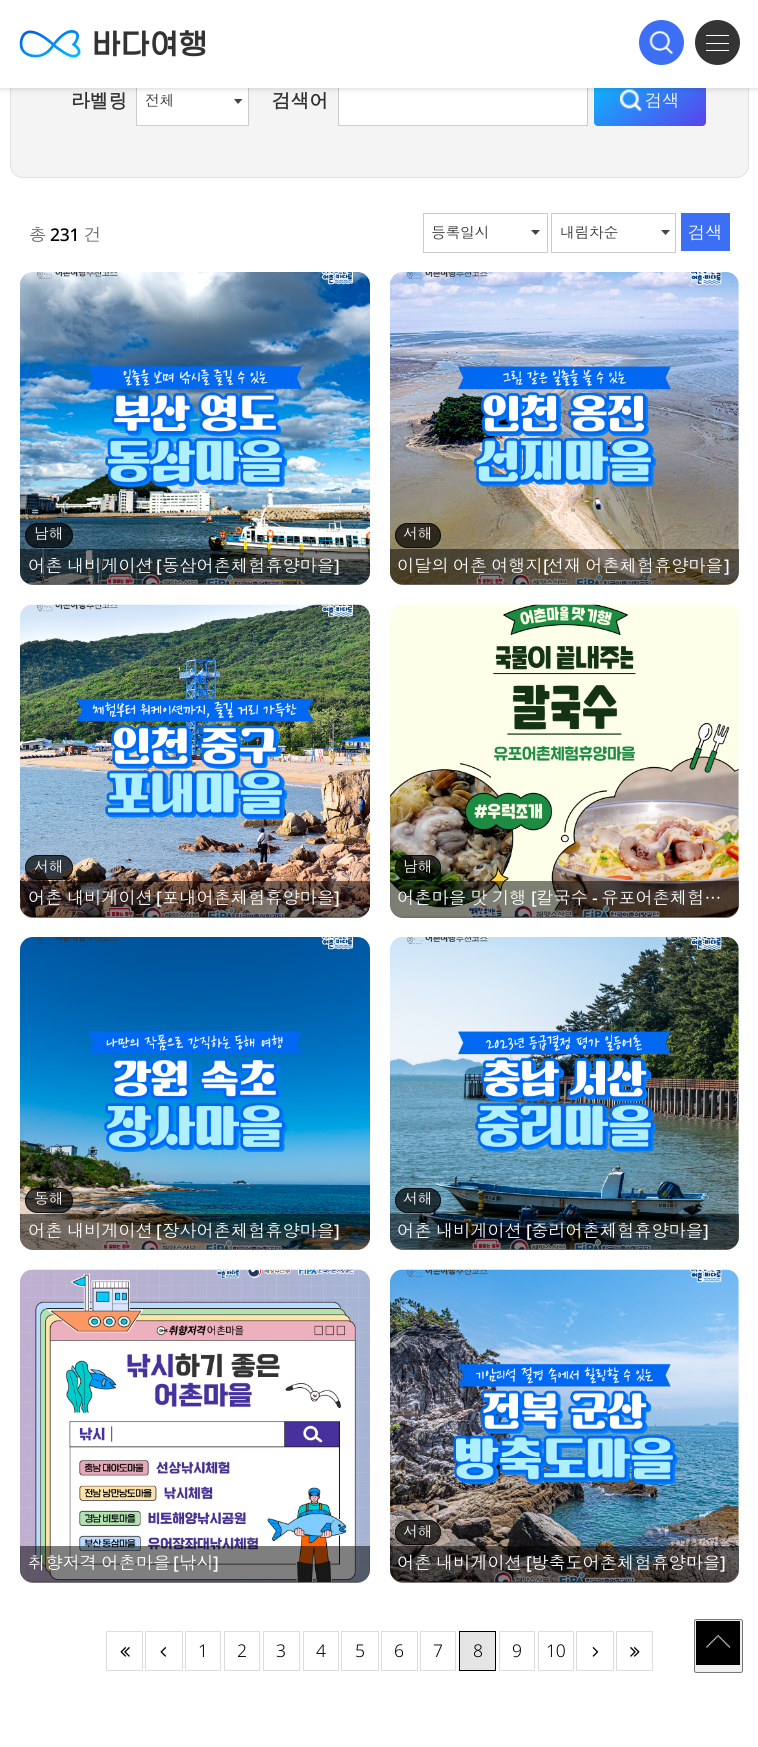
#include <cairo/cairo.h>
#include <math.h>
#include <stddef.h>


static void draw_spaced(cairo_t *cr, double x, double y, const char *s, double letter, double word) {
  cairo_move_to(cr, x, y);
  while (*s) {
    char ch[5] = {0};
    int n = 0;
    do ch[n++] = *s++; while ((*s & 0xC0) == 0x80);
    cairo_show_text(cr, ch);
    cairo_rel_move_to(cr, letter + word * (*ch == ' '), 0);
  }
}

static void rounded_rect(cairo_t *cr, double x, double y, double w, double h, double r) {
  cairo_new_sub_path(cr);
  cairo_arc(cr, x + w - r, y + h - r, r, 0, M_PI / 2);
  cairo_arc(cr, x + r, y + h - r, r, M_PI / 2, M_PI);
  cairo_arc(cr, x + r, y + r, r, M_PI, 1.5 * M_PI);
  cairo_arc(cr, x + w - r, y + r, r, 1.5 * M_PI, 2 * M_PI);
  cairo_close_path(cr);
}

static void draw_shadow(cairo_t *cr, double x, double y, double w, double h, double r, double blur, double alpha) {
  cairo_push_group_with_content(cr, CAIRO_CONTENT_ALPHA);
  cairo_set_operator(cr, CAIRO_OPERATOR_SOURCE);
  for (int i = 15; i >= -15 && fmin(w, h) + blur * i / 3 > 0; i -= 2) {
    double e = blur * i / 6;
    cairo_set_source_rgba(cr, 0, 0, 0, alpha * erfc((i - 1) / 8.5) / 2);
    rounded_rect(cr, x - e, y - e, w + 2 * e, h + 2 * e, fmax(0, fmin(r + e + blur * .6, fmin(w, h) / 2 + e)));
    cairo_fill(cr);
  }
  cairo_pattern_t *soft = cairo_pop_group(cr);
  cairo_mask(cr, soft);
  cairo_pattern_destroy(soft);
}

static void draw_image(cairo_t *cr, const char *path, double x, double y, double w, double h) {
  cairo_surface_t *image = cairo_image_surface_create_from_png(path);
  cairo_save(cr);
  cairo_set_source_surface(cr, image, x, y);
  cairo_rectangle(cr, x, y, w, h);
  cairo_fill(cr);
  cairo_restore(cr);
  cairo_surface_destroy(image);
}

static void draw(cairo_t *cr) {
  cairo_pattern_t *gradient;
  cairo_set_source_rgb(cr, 1, 1, 1);
  cairo_paint(cr);
  cairo_set_source_rgb(cr, 244 / 255.0, 244 / 255.0, 244 / 255.0);
  rounded_rect(cr, 10.5, 25.5, 738, 152, 12.5);
  cairo_fill_preserve(cr);
  cairo_set_source_rgb(cr, 225 / 255.0, 225 / 255.0, 225 / 255.0);
  cairo_set_line_width(cr, 1);
  cairo_stroke(cr);
  cairo_set_source_rgb(cr, 1, 1, 1);
  cairo_rectangle(cr, 137, 88, 111, 37);
  cairo_fill(cr);
  cairo_set_source_rgb(cr, 68 / 255.0, 68 / 255.0, 68 / 255.0);
  cairo_new_path(cr);
  cairo_move_to(cr, 238, 104);
  cairo_line_to(cr, 242.5, 99);
  cairo_line_to(cr, 234, 99);
  cairo_close_path(cr);
  cairo_fill(cr);
  cairo_rectangle(cr, 136.5, 76.5, 112, 49);
  cairo_set_source_rgb(cr, 204 / 255.0, 204 / 255.0, 204 / 255.0);
  cairo_stroke(cr);
  cairo_set_source_rgb(cr, 1, 1, 1);
  cairo_rectangle(cr, 339, 88, 248, 37);
  cairo_fill(cr);
  cairo_rectangle(cr, 338.5, 76.5, 249, 49);
  cairo_set_source_rgb(cr, 204 / 255.0, 204 / 255.0, 204 / 255.0);
  cairo_stroke(cr);
  gradient = cairo_pattern_create_linear(614, 59, 686, 144);
  cairo_pattern_add_color_stop_rgba(gradient, 0, 9 / 255.0, 187 / 255.0, 254 / 255.0, 1);
  cairo_pattern_add_color_stop_rgba(gradient, 1, 90 / 255.0, 66 / 255.0, 236 / 255.0, 1);
  cairo_set_source(cr, gradient);
  cairo_pattern_destroy(gradient);
  rounded_rect(cr, 594, 76, 112, 50, 4);
  cairo_fill(cr);
  draw_image(cr, "images/3.png", 620, 89, 22, 22);
  cairo_set_source_rgb(cr, 0, 0, 0);
  draw_shadow(cr, 0, 1, 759, 88, 0, 3, 0.15);
  cairo_set_source_rgb(cr, 1, 1, 1);
  cairo_rectangle(cr, 0, 0, 758, 88);
  cairo_fill(cr);
  draw_image(cr, "images/1.png", 19, 30, 187, 28);
  cairo_set_source_rgb(cr, 60 / 255.0, 111 / 255.0, 243 / 255.0);
  cairo_arc(cr, 661.5, 42.5, 22.5, 0, 2 * M_PI);
  cairo_fill(cr);
  draw_image(cr, "images/2.png", 649, 31, 24, 23);
  cairo_set_source_rgb(cr, 52 / 255.0, 52 / 255.0, 52 / 255.0);
  cairo_arc(cr, 717.5, 42.5, 22.5, 0, 2 * M_PI);
  cairo_fill(cr);
  cairo_set_source_rgb(cr, 1, 1, 1);
  cairo_rectangle(cr, 706, 35, 23, 1);
  cairo_fill(cr);
  cairo_rectangle(cr, 706, 43, 23, 1);
  cairo_fill(cr);
  cairo_rectangle(cr, 706, 50, 23, 1);
  cairo_fill(cr);
  cairo_set_source_rgb(cr, 68 / 255.0, 68 / 255.0, 68 / 255.0);
  cairo_new_path(cr);
  cairo_move_to(cr, 535.5, 235);
  cairo_line_to(cr, 540, 230);
  cairo_line_to(cr, 531, 230);
  cairo_close_path(cr);
  cairo_fill(cr);
  cairo_rectangle(cr, 423.5, 213.5, 124, 39);
  cairo_set_source_rgb(cr, 204 / 255.0, 204 / 255.0, 204 / 255.0);
  cairo_stroke(cr);
  cairo_set_source_rgb(cr, 68 / 255.0, 68 / 255.0, 68 / 255.0);
  cairo_new_path(cr);
  cairo_move_to(cr, 665.5, 235);
  cairo_line_to(cr, 670, 230);
  cairo_line_to(cr, 661, 230);
  cairo_close_path(cr);
  cairo_fill(cr);
  cairo_rectangle(cr, 551.5, 213.5, 124, 39);
  cairo_set_source_rgb(cr, 204 / 255.0, 204 / 255.0, 204 / 255.0);
  cairo_stroke(cr);
  cairo_set_source_rgb(cr, 60 / 255.0, 111 / 255.0, 243 / 255.0);
  cairo_rectangle(cr, 681, 213, 49, 38);
  cairo_fill(cr);
  cairo_set_source_rgb(cr, 249 / 255.0, 249 / 255.0, 249 / 255.0);
  rounded_rect(cr, 20, 273, 350, 312, 13);
  cairo_fill(cr);
  draw_image(cr, "images/4.png", 20, 272, 350, 313);
  cairo_set_source_rgba(cr, 0, 0, 0, 0.7);
  rounded_rect(cr, 25, 523, 48, 25, 12.5);
  cairo_fill(cr);
  rounded_rect(cr, 25.5, 523.5, 47, 24, 12);
  cairo_stroke(cr);
  cairo_set_source_rgba(cr, 0, 0, 0, 0.5);
  cairo_new_path(cr);
  cairo_move_to(cr, 20, 549);
  cairo_line_to(cr, 370, 549);
  cairo_line_to(cr, 370, 572);
  cairo_curve_to(cr, 370, 579, 364, 585, 357, 585);
  cairo_line_to(cr, 33, 585);
  cairo_curve_to(cr, 26, 585, 20, 579, 20, 572);
  cairo_close_path(cr);
  cairo_fill(cr);
  cairo_set_source_rgba(cr, 0, 0, 0, 0.1);
  cairo_set_fill_rule(cr, CAIRO_FILL_RULE_EVEN_ODD);
  cairo_new_path(cr);
  cairo_move_to(cr, 20, 549);
  cairo_line_to(cr, 370, 549);
  cairo_line_to(cr, 370, 572);
  cairo_curve_to(cr, 370, 579, 364, 585, 358, 585);
  cairo_line_to(cr, 32, 585);
  cairo_curve_to(cr, 26, 585, 20, 579, 20, 572);
  cairo_close_path(cr);
  cairo_move_to(cr, 21, 549);
  cairo_line_to(cr, 369, 549);
  cairo_line_to(cr, 369, 572);
  cairo_curve_to(cr, 369, 579, 364, 584, 358, 584);
  cairo_line_to(cr, 32, 584);
  cairo_curve_to(cr, 26, 584, 21, 579, 21, 572);
  cairo_close_path(cr);
  cairo_fill(cr);
  cairo_set_source_rgb(cr, 249 / 255.0, 249 / 255.0, 249 / 255.0);
  rounded_rect(cr, 390, 273, 349, 312, 13);
  cairo_fill(cr);
  draw_image(cr, "images/5.png", 390, 272, 349, 313);
  cairo_set_source_rgba(cr, 0, 0, 0, 0.7);
  rounded_rect(cr, 395, 523, 46, 25, 12.5);
  cairo_fill(cr);
  rounded_rect(cr, 395.5, 523.5, 45, 24, 12);
  cairo_stroke(cr);
  cairo_set_source_rgba(cr, 0, 0, 0, 0.5);
  cairo_new_path(cr);
  cairo_move_to(cr, 390, 549);
  cairo_line_to(cr, 739, 549);
  cairo_line_to(cr, 739, 572);
  cairo_curve_to(cr, 739, 579, 733, 585, 726, 585);
  cairo_line_to(cr, 403, 585);
  cairo_curve_to(cr, 396, 585, 390, 579, 390, 572);
  cairo_close_path(cr);
  cairo_fill(cr);
  cairo_set_source_rgba(cr, 0, 0, 0, 0.1);
  cairo_new_path(cr);
  cairo_move_to(cr, 390, 549);
  cairo_line_to(cr, 739, 549);
  cairo_line_to(cr, 739, 572);
  cairo_curve_to(cr, 739, 579, 733, 585, 726, 585);
  cairo_line_to(cr, 402, 585);
  cairo_curve_to(cr, 396, 585, 390, 579, 390, 572);
  cairo_close_path(cr);
  cairo_move_to(cr, 391, 549);
  cairo_line_to(cr, 738, 549);
  cairo_line_to(cr, 738, 572);
  cairo_curve_to(cr, 738, 579, 732, 584, 726, 584);
  cairo_line_to(cr, 402, 584);
  cairo_curve_to(cr, 396, 584, 391, 579, 391, 572);
  cairo_close_path(cr);
  cairo_fill(cr);
  cairo_set_source_rgb(cr, 249 / 255.0, 249 / 255.0, 249 / 255.0);
  rounded_rect(cr, 20, 605, 350, 313, 13);
  cairo_fill(cr);
  draw_image(cr, "images/6.png", 20, 604, 350, 313);
  cairo_set_source_rgba(cr, 0, 0, 0, 0.7);
  rounded_rect(cr, 25, 855, 48, 25, 12.5);
  cairo_fill(cr);
  rounded_rect(cr, 25.5, 855.5, 47, 24, 12);
  cairo_stroke(cr);
  cairo_set_source_rgba(cr, 0, 0, 0, 0.5);
  cairo_new_path(cr);
  cairo_move_to(cr, 20, 881);
  cairo_line_to(cr, 370, 881);
  cairo_line_to(cr, 370, 905);
  cairo_curve_to(cr, 370, 912, 364, 918, 357, 918);
  cairo_line_to(cr, 33, 918);
  cairo_curve_to(cr, 26, 918, 20, 912, 20, 905);
  cairo_close_path(cr);
  cairo_fill(cr);
  cairo_set_source_rgba(cr, 0, 0, 0, 0.1);
  cairo_new_path(cr);
  cairo_move_to(cr, 20, 881);
  cairo_line_to(cr, 370, 881);
  cairo_line_to(cr, 370, 905);
  cairo_curve_to(cr, 370, 912, 364, 918, 358, 918);
  cairo_line_to(cr, 32, 918);
  cairo_curve_to(cr, 26, 918, 20, 912, 20, 905);
  cairo_close_path(cr);
  cairo_move_to(cr, 21, 881);
  cairo_line_to(cr, 369, 881);
  cairo_line_to(cr, 369, 905);
  cairo_curve_to(cr, 369, 911, 364, 916, 358, 916);
  cairo_line_to(cr, 32, 916);
  cairo_curve_to(cr, 26, 916, 21, 911, 21, 905);
  cairo_close_path(cr);
  cairo_fill(cr);
  cairo_set_source_rgb(cr, 249 / 255.0, 249 / 255.0, 249 / 255.0);
  rounded_rect(cr, 390, 605, 349, 313, 13);
  cairo_fill(cr);
  draw_image(cr, "images/7.png", 390, 604, 349, 313);
  cairo_set_source_rgba(cr, 0, 0, 0, 0.7);
  rounded_rect(cr, 395, 855, 46, 25, 12.5);
  cairo_fill(cr);
  rounded_rect(cr, 395.5, 855.5, 45, 24, 12);
  cairo_stroke(cr);
  cairo_set_source_rgba(cr, 0, 0, 0, 0.5);
  cairo_new_path(cr);
  cairo_move_to(cr, 390, 881);
  cairo_line_to(cr, 739, 881);
  cairo_line_to(cr, 739, 905);
  cairo_curve_to(cr, 739, 912, 733, 918, 726, 918);
  cairo_line_to(cr, 403, 918);
  cairo_curve_to(cr, 396, 918, 390, 912, 390, 905);
  cairo_close_path(cr);
  cairo_fill(cr);
  cairo_set_source_rgba(cr, 0, 0, 0, 0.1);
  cairo_new_path(cr);
  cairo_move_to(cr, 390, 881);
  cairo_line_to(cr, 739, 881);
  cairo_line_to(cr, 739, 905);
  cairo_curve_to(cr, 739, 912, 733, 918, 726, 918);
  cairo_line_to(cr, 402, 918);
  cairo_curve_to(cr, 396, 918, 390, 912, 390, 905);
  cairo_close_path(cr);
  cairo_move_to(cr, 391, 881);
  cairo_line_to(cr, 738, 881);
  cairo_line_to(cr, 738, 905);
  cairo_curve_to(cr, 738, 911, 732, 916, 726, 916);
  cairo_line_to(cr, 402, 916);
  cairo_curve_to(cr, 396, 916, 391, 911, 391, 905);
  cairo_close_path(cr);
  cairo_fill(cr);
  cairo_set_source_rgb(cr, 249 / 255.0, 249 / 255.0, 249 / 255.0);
  rounded_rect(cr, 20, 938, 350, 312, 13);
  cairo_fill(cr);
  draw_image(cr, "images/8.png", 20, 937, 350, 313);
  cairo_set_source_rgba(cr, 0, 0, 0, 0.7);
  rounded_rect(cr, 25, 1188, 48, 25, 12.5);
  cairo_fill(cr);
  rounded_rect(cr, 25.5, 1188.5, 47, 24, 12);
  cairo_stroke(cr);
  cairo_set_source_rgba(cr, 0, 0, 0, 0.5);
  cairo_new_path(cr);
  cairo_move_to(cr, 20, 1214);
  cairo_line_to(cr, 370, 1214);
  cairo_line_to(cr, 370, 1237);
  cairo_curve_to(cr, 370, 1244, 364, 1250, 357, 1250);
  cairo_line_to(cr, 33, 1250);
  cairo_curve_to(cr, 26, 1250, 20, 1244, 20, 1237);
  cairo_close_path(cr);
  cairo_fill(cr);
  cairo_set_source_rgba(cr, 0, 0, 0, 0.1);
  cairo_new_path(cr);
  cairo_move_to(cr, 20, 1214);
  cairo_line_to(cr, 370, 1214);
  cairo_line_to(cr, 370, 1238);
  cairo_curve_to(cr, 370, 1244, 364, 1250, 358, 1250);
  cairo_line_to(cr, 32, 1250);
  cairo_curve_to(cr, 26, 1250, 20, 1244, 20, 1238);
  cairo_close_path(cr);
  cairo_move_to(cr, 21, 1214);
  cairo_line_to(cr, 369, 1214);
  cairo_line_to(cr, 369, 1238);
  cairo_curve_to(cr, 369, 1244, 364, 1249, 358, 1249);
  cairo_line_to(cr, 32, 1249);
  cairo_curve_to(cr, 26, 1249, 21, 1244, 21, 1238);
  cairo_close_path(cr);
  cairo_fill(cr);
  cairo_set_source_rgb(cr, 249 / 255.0, 249 / 255.0, 249 / 255.0);
  rounded_rect(cr, 390, 938, 349, 312, 13);
  cairo_fill(cr);
  draw_image(cr, "images/9.png", 390, 937, 349, 313);
  cairo_set_source_rgba(cr, 0, 0, 0, 0.7);
  rounded_rect(cr, 395, 1188, 46, 25, 12.5);
  cairo_fill(cr);
  rounded_rect(cr, 395.5, 1188.5, 45, 24, 12);
  cairo_stroke(cr);
  cairo_set_source_rgba(cr, 0, 0, 0, 0.5);
  cairo_new_path(cr);
  cairo_move_to(cr, 390, 1214);
  cairo_line_to(cr, 739, 1214);
  cairo_line_to(cr, 739, 1237);
  cairo_curve_to(cr, 739, 1244, 733, 1250, 726, 1250);
  cairo_line_to(cr, 403, 1250);
  cairo_curve_to(cr, 396, 1250, 390, 1244, 390, 1237);
  cairo_close_path(cr);
  cairo_fill(cr);
  cairo_set_source_rgba(cr, 0, 0, 0, 0.1);
  cairo_new_path(cr);
  cairo_move_to(cr, 390, 1214);
  cairo_line_to(cr, 739, 1214);
  cairo_line_to(cr, 739, 1238);
  cairo_curve_to(cr, 739, 1244, 733, 1250, 726, 1250);
  cairo_line_to(cr, 402, 1250);
  cairo_curve_to(cr, 396, 1250, 390, 1244, 390, 1238);
  cairo_close_path(cr);
  cairo_move_to(cr, 391, 1214);
  cairo_line_to(cr, 738, 1214);
  cairo_line_to(cr, 738, 1238);
  cairo_curve_to(cr, 738, 1244, 732, 1249, 726, 1249);
  cairo_line_to(cr, 402, 1249);
  cairo_curve_to(cr, 396, 1249, 391, 1244, 391, 1238);
  cairo_close_path(cr);
  cairo_fill(cr);
  cairo_set_source_rgb(cr, 249 / 255.0, 249 / 255.0, 249 / 255.0);
  rounded_rect(cr, 20, 1270, 350, 313, 13);
  cairo_fill(cr);
  draw_image(cr, "images/10.png", 20, 1269, 350, 313);
  cairo_set_source_rgba(cr, 0, 0, 0, 0.5);
  cairo_new_path(cr);
  cairo_move_to(cr, 20, 1546);
  cairo_line_to(cr, 370, 1546);
  cairo_line_to(cr, 370, 1570);
  cairo_curve_to(cr, 370, 1577, 364, 1583, 357, 1583);
  cairo_line_to(cr, 33, 1583);
  cairo_curve_to(cr, 26, 1583, 20, 1577, 20, 1570);
  cairo_close_path(cr);
  cairo_fill(cr);
  cairo_set_source_rgba(cr, 0, 0, 0, 0.1);
  cairo_new_path(cr);
  cairo_move_to(cr, 20, 1546);
  cairo_line_to(cr, 370, 1546);
  cairo_line_to(cr, 370, 1570);
  cairo_curve_to(cr, 370, 1577, 364, 1582, 358, 1582);
  cairo_line_to(cr, 32, 1582);
  cairo_curve_to(cr, 26, 1582, 20, 1577, 20, 1570);
  cairo_close_path(cr);
  cairo_move_to(cr, 21, 1546);
  cairo_line_to(cr, 369, 1546);
  cairo_line_to(cr, 369, 1570);
  cairo_curve_to(cr, 369, 1576, 364, 1581, 358, 1581);
  cairo_line_to(cr, 32, 1581);
  cairo_curve_to(cr, 26, 1581, 21, 1576, 21, 1570);
  cairo_close_path(cr);
  cairo_fill(cr);
  cairo_set_source_rgb(cr, 249 / 255.0, 249 / 255.0, 249 / 255.0);
  rounded_rect(cr, 390, 1270, 349, 313, 13);
  cairo_fill(cr);
  draw_image(cr, "images/11.png", 390, 1269, 349, 313);
  cairo_set_source_rgba(cr, 0, 0, 0, 0.7);
  rounded_rect(cr, 395, 1520, 46, 25, 12.5);
  cairo_fill(cr);
  rounded_rect(cr, 395.5, 1520.5, 45, 24, 12);
  cairo_stroke(cr);
  cairo_set_source_rgba(cr, 0, 0, 0, 0.5);
  cairo_new_path(cr);
  cairo_move_to(cr, 390, 1546);
  cairo_line_to(cr, 739, 1546);
  cairo_line_to(cr, 739, 1570);
  cairo_curve_to(cr, 739, 1577, 733, 1583, 726, 1583);
  cairo_line_to(cr, 403, 1583);
  cairo_curve_to(cr, 396, 1583, 390, 1577, 390, 1570);
  cairo_close_path(cr);
  cairo_fill(cr);
  cairo_set_source_rgba(cr, 0, 0, 0, 0.1);
  cairo_new_path(cr);
  cairo_move_to(cr, 390, 1546);
  cairo_line_to(cr, 739, 1546);
  cairo_line_to(cr, 739, 1570);
  cairo_curve_to(cr, 739, 1577, 733, 1582, 726, 1582);
  cairo_line_to(cr, 402, 1582);
  cairo_curve_to(cr, 396, 1582, 390, 1577, 390, 1570);
  cairo_close_path(cr);
  cairo_move_to(cr, 391, 1546);
  cairo_line_to(cr, 738, 1546);
  cairo_line_to(cr, 738, 1570);
  cairo_curve_to(cr, 738, 1576, 732, 1581, 726, 1581);
  cairo_line_to(cr, 402, 1581);
  cairo_curve_to(cr, 396, 1581, 391, 1576, 391, 1570);
  cairo_close_path(cr);
  cairo_fill(cr);
  cairo_rectangle(cr, 106.5, 1631.5, 36, 39);
  cairo_set_source_rgb(cr, 221 / 255.0, 221 / 255.0, 221 / 255.0);
  cairo_stroke(cr);
  draw_image(cr, "images/12.png", 120, 1647, 10, 10);
  cairo_rectangle(cr, 145.5, 1631.5, 37, 39);
  cairo_stroke(cr);
  draw_image(cr, "images/13.png", 160, 1647, 7, 10);
  cairo_rectangle(cr, 185.5, 1631.5, 35, 39);
  cairo_stroke(cr);
  cairo_rectangle(cr, 224.5, 1631.5, 35, 39);
  cairo_stroke(cr);
  cairo_rectangle(cr, 263.5, 1631.5, 36, 39);
  cairo_stroke(cr);
  cairo_rectangle(cr, 303.5, 1631.5, 35, 39);
  cairo_stroke(cr);
  cairo_rectangle(cr, 341.5, 1631.5, 37, 39);
  cairo_stroke(cr);
  cairo_rectangle(cr, 381.5, 1631.5, 36, 39);
  cairo_stroke(cr);
  cairo_rectangle(cr, 420.5, 1631.5, 35, 39);
  cairo_stroke(cr);
  cairo_set_source_rgb(cr, 229 / 255.0, 229 / 255.0, 229 / 255.0);
  cairo_rectangle(cr, 459.5, 1631.5, 36, 39);
  cairo_fill_preserve(cr);
  cairo_set_source_rgb(cr, 0, 0, 0);
  cairo_stroke(cr);
  cairo_rectangle(cr, 499.5, 1631.5, 35, 39);
  cairo_set_source_rgb(cr, 221 / 255.0, 221 / 255.0, 221 / 255.0);
  cairo_stroke(cr);
  cairo_rectangle(cr, 538.5, 1631.5, 35, 39);
  cairo_stroke(cr);
  cairo_rectangle(cr, 576.5, 1631.5, 37, 39);
  cairo_stroke(cr);
  draw_image(cr, "images/14.png", 592, 1647, 7, 10);
  cairo_rectangle(cr, 616.5, 1631.5, 36, 39);
  cairo_stroke(cr);
  draw_image(cr, "images/15.png", 630, 1647, 10, 10);
  cairo_set_source_rgb(cr, 239 / 255.0, 239 / 255.0, 239 / 255.0);
  rounded_rect(cr, 694.5, 1619.5, 48, 53, 2);
  cairo_fill_preserve(cr);
  cairo_set_source_rgb(cr, 118 / 255.0, 118 / 255.0, 118 / 255.0);
  cairo_stroke(cr);
  cairo_set_source_rgb(cr, 0, 0, 0);
  cairo_rectangle(cr, 696, 1621, 44, 44);
  cairo_fill(cr);
  draw_image(cr, "images/16.png", 706, 1634, 25, 14);
  cairo_select_font_face(cr, "Dotum", CAIRO_FONT_SLANT_NORMAL, CAIRO_FONT_WEIGHT_BOLD);
  cairo_set_font_size(cr, 19);
  cairo_set_source_rgb(cr, 51 / 255.0, 51 / 255.0, 51 / 255.0);
  draw_spaced(cr, 71, 108, "라벨링", -0.3, 0);
  cairo_select_font_face(cr, "Dotum", CAIRO_FONT_SLANT_NORMAL, CAIRO_FONT_WEIGHT_NORMAL);
  cairo_set_font_size(cr, 15);
  draw_spaced(cr, 145, 106, "전체", -0.5, 0);
  cairo_select_font_face(cr, "Dotum", CAIRO_FONT_SLANT_NORMAL, CAIRO_FONT_WEIGHT_BOLD);
  cairo_set_font_size(cr, 19);
  draw_spaced(cr, 272, 108, "검색어", -0.3, 0);
  cairo_select_font_face(cr, "Dotum", CAIRO_FONT_SLANT_NORMAL, CAIRO_FONT_WEIGHT_NORMAL);
  cairo_set_font_size(cr, 17.5);
  cairo_set_source_rgb(cr, 1, 1, 1);
  draw_spaced(cr, 645, 107, "검색", -0.3, 0);
  cairo_set_source_rgb(cr, 102 / 255.0, 102 / 255.0, 102 / 255.0);
  draw_spaced(cr, 29, 241, "총", -0.3, 0);
  cairo_select_font_face(cr, "Noto Sans Medium", CAIRO_FONT_SLANT_NORMAL, CAIRO_FONT_WEIGHT_NORMAL);
  cairo_set_source_rgb(cr, 0, 0, 0);
  draw_spaced(cr, 50, 241, "231", -0.3, 0);
  cairo_select_font_face(cr, "Dotum", CAIRO_FONT_SLANT_NORMAL, CAIRO_FONT_WEIGHT_NORMAL);
  cairo_set_source_rgb(cr, 102 / 255.0, 102 / 255.0, 102 / 255.0);
  draw_spaced(cr, 84, 241, "건", -0.3, 0);
  cairo_set_font_size(cr, 15);
  cairo_set_source_rgb(cr, 51 / 255.0, 51 / 255.0, 51 / 255.0);
  draw_spaced(cr, 431, 238, "등록일시", -0.5, 0);
  draw_spaced(cr, 560, 238, "내림차순", -0.5, 0);
  cairo_set_font_size(cr, 17.5);
  cairo_set_source_rgb(cr, 1, 1, 1);
  draw_spaced(cr, 688, 239, "검색", -0.3, 0);
  cairo_set_font_size(cr, 15);
  draw_spaced(cr, 34, 539, "남해", -0.3, 0);
  cairo_set_font_size(cr, 17.5);
  draw_spaced(cr, 28, 572, "어촌 내비게이션", -0.3, -1);
  cairo_select_font_face(cr, "Noto Sans Medium", CAIRO_FONT_SLANT_NORMAL, CAIRO_FONT_WEIGHT_NORMAL);
  draw_spaced(cr, 156, 572, "[", -0.3, 0);
  cairo_select_font_face(cr, "Dotum", CAIRO_FONT_SLANT_NORMAL, CAIRO_FONT_WEIGHT_NORMAL);
  draw_spaced(cr, 162, 572, "동삼어촌체험휴양마을", -0.3, 0);
  cairo_select_font_face(cr, "Noto Sans Medium", CAIRO_FONT_SLANT_NORMAL, CAIRO_FONT_WEIGHT_NORMAL);
  draw_spaced(cr, 334, 572, "]", -0.3, 0);
  cairo_select_font_face(cr, "Dotum", CAIRO_FONT_SLANT_NORMAL, CAIRO_FONT_WEIGHT_NORMAL);
  cairo_set_font_size(cr, 15);
  draw_spaced(cr, 403, 539, "서해", -0.3, 0);
  cairo_set_font_size(cr, 17.5);
  draw_spaced(cr, 397, 572, "이달의 어촌 여행지 선재 어촌체험휴양마을", -0.3, -1.5);
  cairo_select_font_face(cr, "Noto Sans Medium", CAIRO_FONT_SLANT_NORMAL, CAIRO_FONT_WEIGHT_NORMAL);
  draw_spaced(cr, 543, 572, "[", -0.3, 0);
  draw_spaced(cr, 724, 572, "]", -0.3, 0);
  cairo_select_font_face(cr, "Dotum", CAIRO_FONT_SLANT_NORMAL, CAIRO_FONT_WEIGHT_NORMAL);
  cairo_set_font_size(cr, 15);
  draw_spaced(cr, 34, 872, "서해", -0.3, 0);
  cairo_set_font_size(cr, 17.5);
  draw_spaced(cr, 28, 904, "어촌 내비게이션", -0.3, -1);
  cairo_select_font_face(cr, "Noto Sans Medium", CAIRO_FONT_SLANT_NORMAL, CAIRO_FONT_WEIGHT_NORMAL);
  draw_spaced(cr, 156, 904, "[", -0.3, 0);
  cairo_select_font_face(cr, "Dotum", CAIRO_FONT_SLANT_NORMAL, CAIRO_FONT_WEIGHT_NORMAL);
  draw_spaced(cr, 162, 904, "포내어촌체험휴양마을", -0.3, 0);
  cairo_select_font_face(cr, "Noto Sans Medium", CAIRO_FONT_SLANT_NORMAL, CAIRO_FONT_WEIGHT_NORMAL);
  draw_spaced(cr, 334, 904, "]", -0.3, 0);
  cairo_select_font_face(cr, "Dotum", CAIRO_FONT_SLANT_NORMAL, CAIRO_FONT_WEIGHT_NORMAL);
  cairo_set_font_size(cr, 15);
  draw_spaced(cr, 403, 872, "남해", -0.3, 0);
  cairo_set_font_size(cr, 17.5);
  draw_spaced(cr, 397, 904, "어촌마을 맛 기행", -0.3, -1);
  cairo_select_font_face(cr, "Noto Sans Medium", CAIRO_FONT_SLANT_NORMAL, CAIRO_FONT_WEIGHT_NORMAL);
  draw_spaced(cr, 531, 904, "[", -0.3, 0);
  cairo_select_font_face(cr, "Dotum", CAIRO_FONT_SLANT_NORMAL, CAIRO_FONT_WEIGHT_NORMAL);
  draw_spaced(cr, 536, 904, "칼국수", -0.3, 0);
  cairo_select_font_face(cr, "Noto Sans Medium", CAIRO_FONT_SLANT_NORMAL, CAIRO_FONT_WEIGHT_NORMAL);
  draw_spaced(cr, 592, 904, "-", -0.3, 0);
  cairo_select_font_face(cr, "Dotum", CAIRO_FONT_SLANT_NORMAL, CAIRO_FONT_WEIGHT_NORMAL);
  draw_spaced(cr, 601, 904, "유포어촌체험…", -0.3, 0);
  cairo_set_font_size(cr, 15);
  draw_spaced(cr, 34, 1204, "동해", -0.3, 0);
  cairo_set_font_size(cr, 17.5);
  draw_spaced(cr, 28, 1237, "어촌 내비게이션", -0.3, -1);
  cairo_select_font_face(cr, "Noto Sans Medium", CAIRO_FONT_SLANT_NORMAL, CAIRO_FONT_WEIGHT_NORMAL);
  draw_spaced(cr, 156, 1237, "[", -0.3, 0);
  cairo_select_font_face(cr, "Dotum", CAIRO_FONT_SLANT_NORMAL, CAIRO_FONT_WEIGHT_NORMAL);
  draw_spaced(cr, 162, 1237, "장사어촌체험휴양마을", -0.3, 0);
  cairo_select_font_face(cr, "Noto Sans Medium", CAIRO_FONT_SLANT_NORMAL, CAIRO_FONT_WEIGHT_NORMAL);
  draw_spaced(cr, 334, 1237, "]", -0.3, 0);
  cairo_select_font_face(cr, "Dotum", CAIRO_FONT_SLANT_NORMAL, CAIRO_FONT_WEIGHT_NORMAL);
  cairo_set_font_size(cr, 15);
  draw_spaced(cr, 403, 1204, "서해", -0.3, 0);
  cairo_set_font_size(cr, 17.5);
  draw_spaced(cr, 397, 1237, "어촌 내비게이션", -0.3, -1);
  cairo_select_font_face(cr, "Noto Sans Medium", CAIRO_FONT_SLANT_NORMAL, CAIRO_FONT_WEIGHT_NORMAL);
  draw_spaced(cr, 526, 1237, "[", -0.3, 0);
  cairo_select_font_face(cr, "Dotum", CAIRO_FONT_SLANT_NORMAL, CAIRO_FONT_WEIGHT_NORMAL);
  draw_spaced(cr, 531, 1237, "중리어촌체험휴양마을", -0.3, 0);
  cairo_select_font_face(cr, "Noto Sans Medium", CAIRO_FONT_SLANT_NORMAL, CAIRO_FONT_WEIGHT_NORMAL);
  draw_spaced(cr, 703, 1237, "]", -0.3, 0);
  cairo_select_font_face(cr, "Dotum", CAIRO_FONT_SLANT_NORMAL, CAIRO_FONT_WEIGHT_NORMAL);
  draw_spaced(cr, 28, 1569, "취향저격 어촌마을", -0.3, -1);
  cairo_select_font_face(cr, "Noto Sans Medium", CAIRO_FONT_SLANT_NORMAL, CAIRO_FONT_WEIGHT_NORMAL);
  draw_spaced(cr, 173, 1569, "[", -0.3, 0);
  cairo_select_font_face(cr, "Dotum", CAIRO_FONT_SLANT_NORMAL, CAIRO_FONT_WEIGHT_NORMAL);
  draw_spaced(cr, 179, 1569, "낚시", -0.3, 0);
  cairo_select_font_face(cr, "Noto Sans Medium", CAIRO_FONT_SLANT_NORMAL, CAIRO_FONT_WEIGHT_NORMAL);
  draw_spaced(cr, 213, 1569, "]", -0.3, 0);
  cairo_select_font_face(cr, "Dotum", CAIRO_FONT_SLANT_NORMAL, CAIRO_FONT_WEIGHT_NORMAL);
  cairo_set_font_size(cr, 15);
  draw_spaced(cr, 403, 1537, "서해", -0.3, 0);
  cairo_set_font_size(cr, 17.5);
  draw_spaced(cr, 397, 1569, "어촌 내비게이션", -0.3, -1);
  cairo_select_font_face(cr, "Noto Sans Medium", CAIRO_FONT_SLANT_NORMAL, CAIRO_FONT_WEIGHT_NORMAL);
  draw_spaced(cr, 526, 1569, "[", -0.3, 0);
  cairo_select_font_face(cr, "Dotum", CAIRO_FONT_SLANT_NORMAL, CAIRO_FONT_WEIGHT_NORMAL);
  draw_spaced(cr, 531, 1569, "방축도어촌체험휴양마을", -0.3, 0);
  cairo_select_font_face(cr, "Noto Sans Medium", CAIRO_FONT_SLANT_NORMAL, CAIRO_FONT_WEIGHT_NORMAL);
  draw_spaced(cr, 720, 1569, "]", -0.3, 0);
  cairo_select_font_face(cr, "Noto Sans Light", CAIRO_FONT_SLANT_NORMAL, CAIRO_FONT_WEIGHT_NORMAL);
  cairo_set_source_rgb(cr, 0, 0, 0);
  draw_spaced(cr, 198, 1657, "1", -0.3, 0);
  draw_spaced(cr, 237, 1657, "2", -0.3, 0);
  draw_spaced(cr, 276, 1657, "3", -0.3, 0);
  draw_spaced(cr, 316, 1657, "4", -0.3, 0);
  draw_spaced(cr, 355, 1657, "5", -0.3, 0);
  draw_spaced(cr, 394, 1657, "6", -0.3, 0);
  draw_spaced(cr, 433, 1657, "7", -0.3, 0);
  draw_spaced(cr, 473, 1657, "8", -0.3, 0);
  draw_spaced(cr, 512, 1657, "9", -0.3, 0);
  draw_spaced(cr, 546, 1657, "10", -0.3, 0);
}

int main(void) {
  cairo_surface_t *surface = cairo_image_surface_create(CAIRO_FORMAT_RGB24, 758, 1747);
  cairo_t *cr = cairo_create(surface);
  cairo_font_options_t *options = cairo_font_options_create();
  cairo_font_options_set_hint_metrics(options, CAIRO_HINT_METRICS_OFF);
  cairo_font_options_set_hint_style(options, CAIRO_HINT_STYLE_NONE);
  cairo_set_font_options(cr, options);
  cairo_set_miter_limit(cr, 4);
  draw(cr);
  cairo_surface_write_to_png(surface, "out.png");
  cairo_font_options_destroy(options);
  cairo_destroy(cr);
  cairo_surface_destroy(surface);
  return 0;
}
